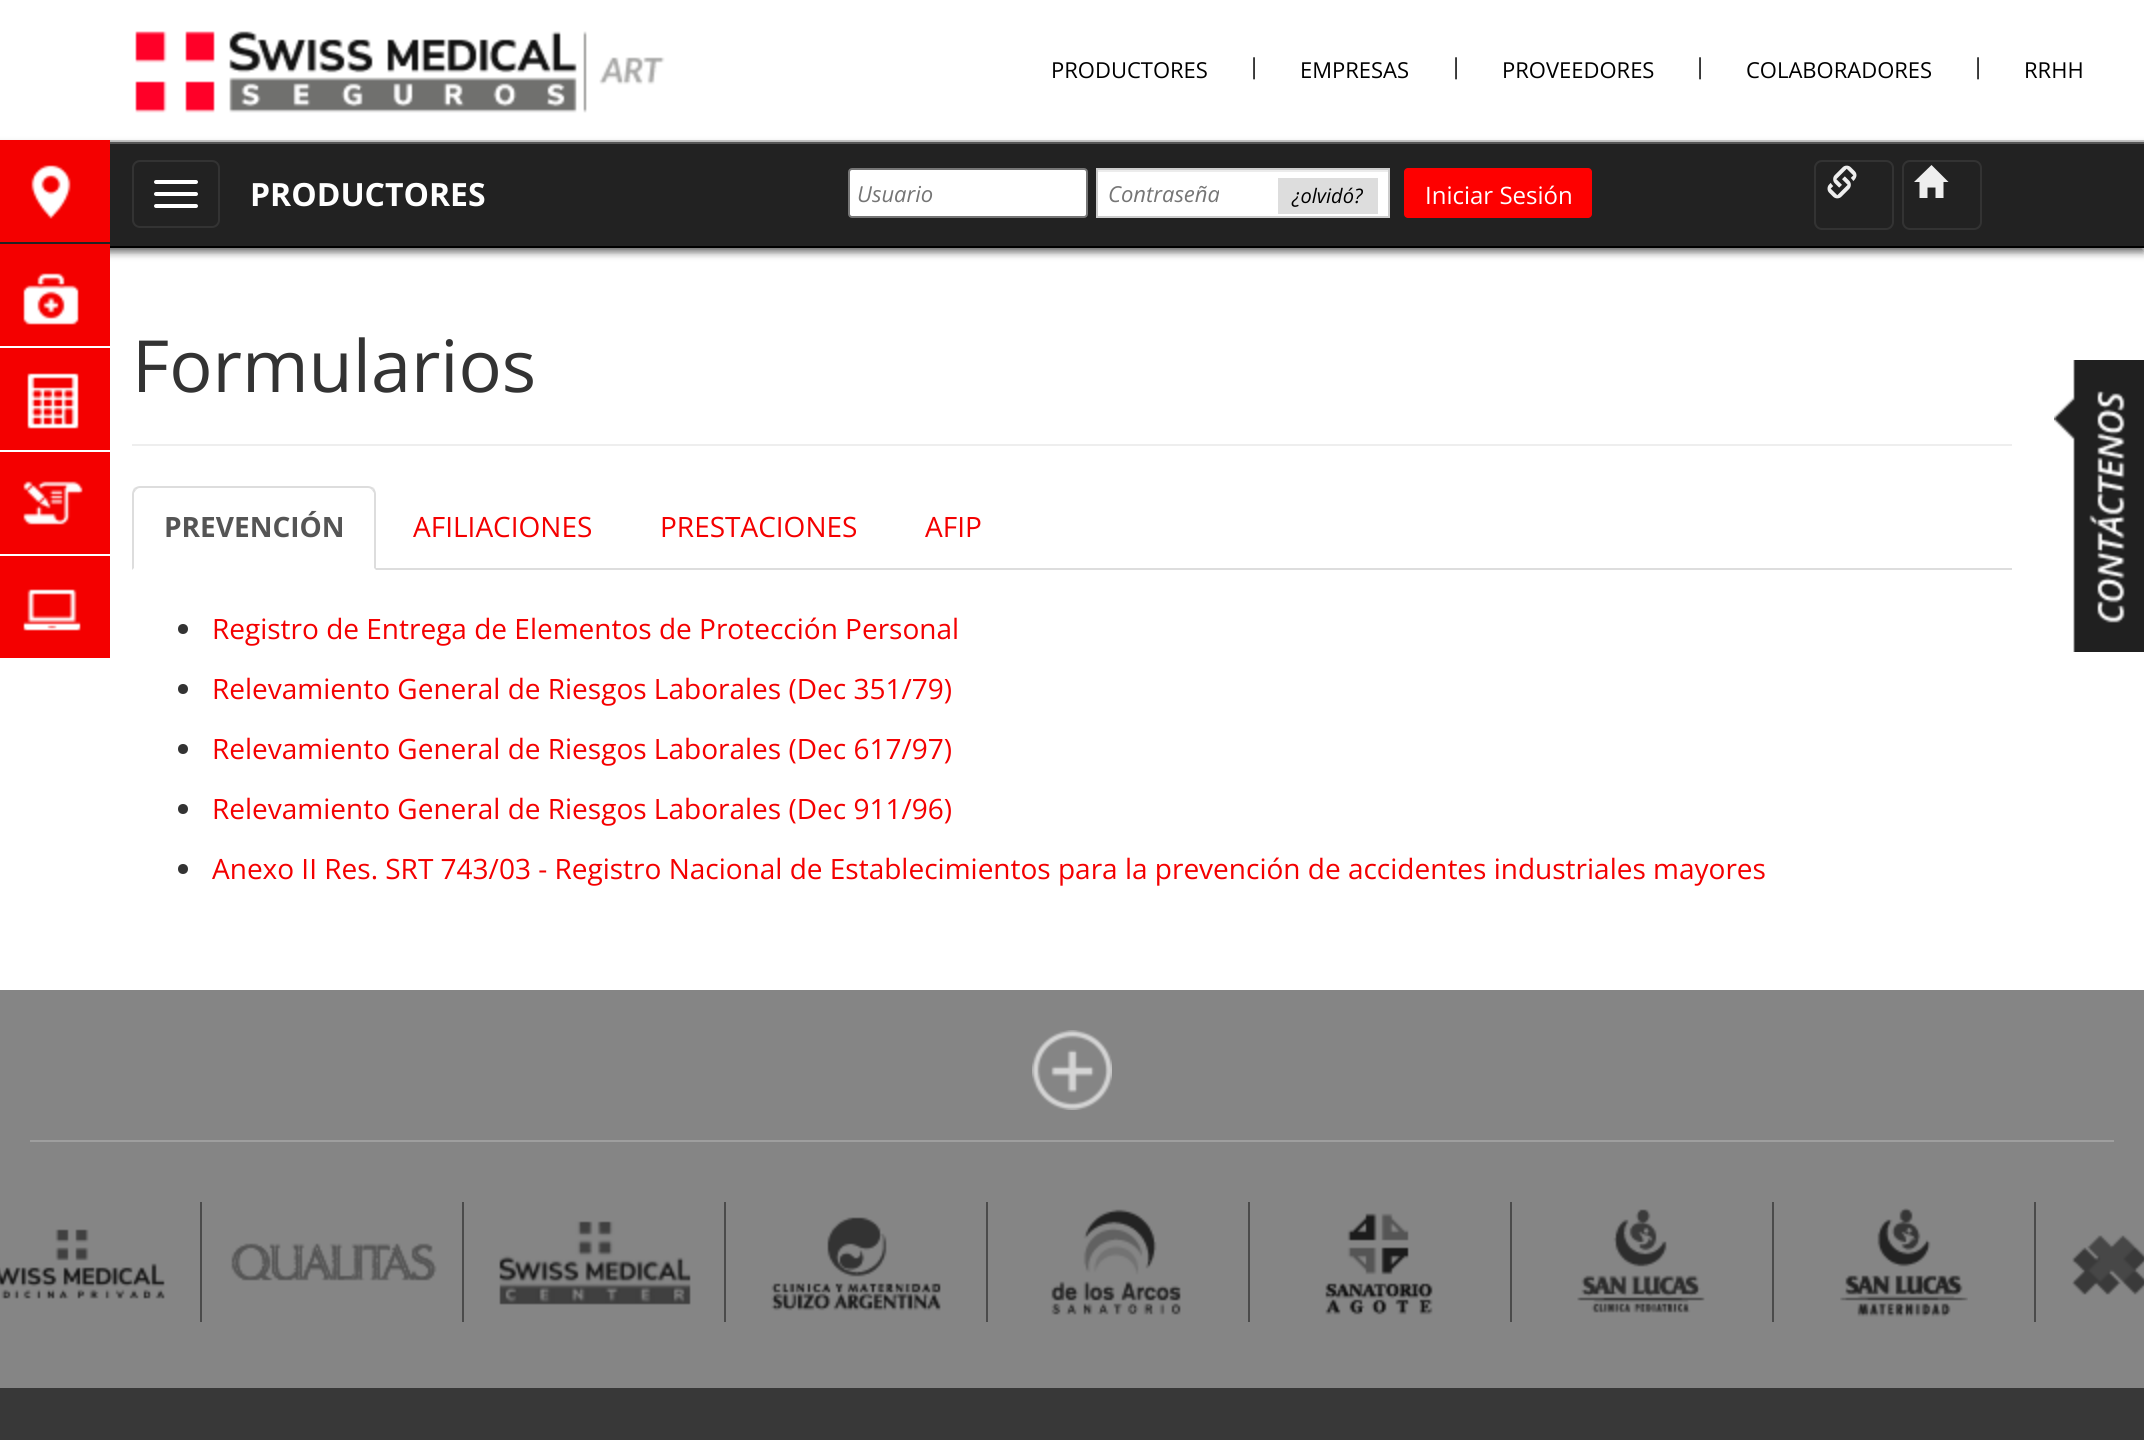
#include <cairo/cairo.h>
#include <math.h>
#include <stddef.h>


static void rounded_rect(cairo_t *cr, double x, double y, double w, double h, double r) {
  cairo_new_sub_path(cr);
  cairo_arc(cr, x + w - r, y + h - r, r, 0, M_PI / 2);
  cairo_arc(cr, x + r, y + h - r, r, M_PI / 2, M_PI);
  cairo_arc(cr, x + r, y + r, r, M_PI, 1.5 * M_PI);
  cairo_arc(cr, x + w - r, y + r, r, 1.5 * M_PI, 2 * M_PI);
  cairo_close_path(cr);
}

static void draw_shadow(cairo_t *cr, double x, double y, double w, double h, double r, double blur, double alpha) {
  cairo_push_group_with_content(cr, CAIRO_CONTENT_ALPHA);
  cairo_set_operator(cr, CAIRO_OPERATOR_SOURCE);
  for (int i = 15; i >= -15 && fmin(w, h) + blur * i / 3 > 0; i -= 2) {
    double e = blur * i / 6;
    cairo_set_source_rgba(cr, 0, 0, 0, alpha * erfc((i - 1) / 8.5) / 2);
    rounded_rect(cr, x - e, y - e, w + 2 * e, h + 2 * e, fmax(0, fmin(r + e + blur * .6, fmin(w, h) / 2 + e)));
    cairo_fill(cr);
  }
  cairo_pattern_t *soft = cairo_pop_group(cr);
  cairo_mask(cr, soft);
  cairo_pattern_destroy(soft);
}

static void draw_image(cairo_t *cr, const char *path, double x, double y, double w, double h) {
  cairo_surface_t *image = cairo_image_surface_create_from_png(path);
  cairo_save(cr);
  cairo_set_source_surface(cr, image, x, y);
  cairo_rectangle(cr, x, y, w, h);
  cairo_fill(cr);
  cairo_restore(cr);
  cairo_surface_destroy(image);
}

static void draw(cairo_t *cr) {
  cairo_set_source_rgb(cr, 1, 1, 1);
  cairo_paint(cr);
  draw_image(cr, "images/1.png", 135, 31, 530, 82);
  cairo_set_source_rgb(cr, 204 / 255.0, 204 / 255.0, 204 / 255.0);
  cairo_rectangle(cr, 110, 140, 2034, 2);
  cairo_fill(cr);
  cairo_set_source_rgb(cr, 0, 0, 0);
  draw_shadow(cr, 0, 146, 2144, 106, 0, 4, 0.6);
  cairo_set_source_rgb(cr, 34 / 255.0, 34 / 255.0, 34 / 255.0);
  cairo_rectangle(cr, 0, 144, 2144, 102);
  cairo_fill(cr);
  cairo_set_source_rgb(cr, 244 / 255.0, 0, 0);
  cairo_rectangle(cr, 0, 140, 110, 102);
  cairo_fill(cr);
  draw_image(cr, "images/2.png", 31, 165, 40, 54);
  cairo_rectangle(cr, 0, 244, 110, 102);
  cairo_fill(cr);
  draw_image(cr, "images/3.png", 23, 273, 56, 52);
  cairo_rectangle(cr, 0, 348, 110, 102);
  cairo_fill(cr);
  draw_image(cr, "images/4.png", 27, 373, 52, 56);
  cairo_rectangle(cr, 0, 452, 110, 102);
  cairo_fill(cr);
  draw_image(cr, "images/5.png", 23, 481, 60, 44);
  cairo_rectangle(cr, 0, 556, 110, 102);
  cairo_fill(cr);
  draw_image(cr, "images/6.png", 23, 589, 58, 42);
  cairo_set_source_rgb(cr, 85 / 255.0, 85 / 255.0, 85 / 255.0);
  cairo_rectangle(cr, 110, 142, 2034, 2);
  cairo_fill(cr);
  cairo_set_source_rgb(cr, 0, 0, 0);
  cairo_rectangle(cr, 110, 246, 2034, 2);
  cairo_fill(cr);
  rounded_rect(cr, 133, 161, 86, 66, 7);
  cairo_set_source_rgb(cr, 51 / 255.0, 51 / 255.0, 51 / 255.0);
  cairo_stroke(cr);
  cairo_set_source_rgb(cr, 1, 1, 1);
  rounded_rect(cr, 154, 180, 44, 4, 2);
  cairo_fill(cr);
  rounded_rect(cr, 154, 192, 44, 4, 2);
  cairo_fill(cr);
  rounded_rect(cr, 154, 204, 44, 4, 2);
  cairo_fill(cr);
  rounded_rect(cr, 849, 169, 238, 48, 3);
  cairo_fill_preserve(cr);
  cairo_set_source_rgb(cr, 118 / 255.0, 118 / 255.0, 118 / 255.0);
  cairo_stroke(cr);
  cairo_set_source_rgb(cr, 1, 1, 1);
  cairo_rectangle(cr, 1098, 172, 290, 44);
  cairo_fill(cr);
  cairo_set_source_rgb(cr, 236 / 255.0, 236 / 255.0, 236 / 255.0);
  cairo_rectangle(cr, 1098, 170, 290, 2);
  cairo_fill(cr);
  cairo_rectangle(cr, 1097, 169, 292, 48);
  cairo_set_source_rgb(cr, 204 / 255.0, 204 / 255.0, 204 / 255.0);
  cairo_stroke(cr);
  cairo_set_source_rgb(cr, 221 / 255.0, 221 / 255.0, 221 / 255.0);
  cairo_rectangle(cr, 1278, 178, 100, 36);
  cairo_fill(cr);
  cairo_set_source_rgb(cr, 254 / 255.0, 0, 0);
  rounded_rect(cr, 1404, 168, 188, 50, 4);
  cairo_fill(cr);
  rounded_rect(cr, 1815, 161, 78, 68, 7);
  cairo_set_source_rgb(cr, 51 / 255.0, 51 / 255.0, 51 / 255.0);
  cairo_stroke(cr);
  draw_image(cr, "images/7.png", 1827, 165, 30, 34);
  rounded_rect(cr, 1903, 161, 78, 68, 7);
  cairo_stroke(cr);
  cairo_set_source_rgb(cr, 238 / 255.0, 238 / 255.0, 238 / 255.0);
  cairo_new_path(cr);
  cairo_move_to(cr, 1914, 182);
  cairo_line_to(cr, 1931.5, 165);
  cairo_line_to(cr, 1948.5, 182);
  cairo_line_to(cr, 1943.5, 182);
  cairo_line_to(cr, 1943.5, 198);
  cairo_line_to(cr, 1935.5, 198);
  cairo_line_to(cr, 1935.5, 187.5);
  cairo_line_to(cr, 1927.5, 187.5);
  cairo_line_to(cr, 1927.5, 198);
  cairo_line_to(cr, 1919.5, 198);
  cairo_line_to(cr, 1919.5, 182);
  cairo_close_path(cr);
  cairo_fill(cr);
  cairo_rectangle(cr, 132, 444, 1880, 2);
  cairo_fill(cr);
  cairo_set_source_rgb(cr, 221 / 255.0, 221 / 255.0, 221 / 255.0);
  cairo_rectangle(cr, 376, 568, 1636, 2);
  cairo_fill(cr);
  cairo_new_path(cr);
  cairo_move_to(cr, 140, 486);
  cairo_curve_to(cr, 138, 486, 136, 487, 134, 488);
  cairo_line_to(cr, 136, 490);
  cairo_curve_to(cr, 137, 489, 138, 488, 140, 488);
  cairo_line_to(cr, 368, 488);
  cairo_curve_to(cr, 370, 488, 371, 489, 372, 490);
  cairo_line_to(cr, 374, 488);
  cairo_curve_to(cr, 372, 487, 370, 486, 368, 486);
  cairo_close_path(cr);
  cairo_fill(cr);
  cairo_new_path(cr);
  cairo_move_to(cr, 376, 570);
  cairo_line_to(cr, 376, 494);
  cairo_curve_to(cr, 376, 492, 375, 490, 374, 488);
  cairo_line_to(cr, 372, 490);
  cairo_line_to(cr, 374, 493);
  cairo_line_to(cr, 374, 568);
  cairo_close_path(cr);
  cairo_fill(cr);
  cairo_new_path(cr);
  cairo_move_to(cr, 132, 570);
  cairo_line_to(cr, 134, 568);
  cairo_line_to(cr, 134, 493);
  cairo_line_to(cr, 136, 490);
  cairo_line_to(cr, 134, 488);
  cairo_curve_to(cr, 133, 490, 132, 492, 132, 494);
  cairo_close_path(cr);
  cairo_fill(cr);
  cairo_set_source_rgb(cr, 51 / 255.0, 51 / 255.0, 51 / 255.0);
  cairo_arc(cr, 183, 629, 5, 0, 2 * M_PI);
  cairo_fill(cr);
  cairo_arc(cr, 183, 689, 5, 0, 2 * M_PI);
  cairo_fill(cr);
  cairo_arc(cr, 183, 749, 5, 0, 2 * M_PI);
  cairo_fill(cr);
  cairo_arc(cr, 183, 809, 5, 0, 2 * M_PI);
  cairo_fill(cr);
  cairo_arc(cr, 183, 869, 5, 0, 2 * M_PI);
  cairo_fill(cr);
  draw_image(cr, "images/8.png", 2054, 360, 90, 292);
  cairo_set_source_rgb(cr, 133 / 255.0, 133 / 255.0, 133 / 255.0);
  cairo_rectangle(cr, 0, 990, 2144, 398);
  cairo_fill(cr);
  cairo_set_source_rgb(cr, 158 / 255.0, 158 / 255.0, 158 / 255.0);
  cairo_rectangle(cr, 30, 1140, 2084, 2);
  cairo_fill(cr);
  draw_image(cr, "images/9.png", 1032, 1030, 80, 80);
  draw_image(cr, "images/10.png", 0, 1229, 165, 70);
  cairo_set_source_rgb(cr, 75 / 255.0, 75 / 255.0, 75 / 255.0);
  cairo_rectangle(cr, 200, 1202, 2, 120);
  cairo_fill(cr);
  draw_image(cr, "images/11.png", 231, 1243, 206, 38);
  cairo_rectangle(cr, 462, 1202, 2, 120);
  cairo_fill(cr);
  draw_image(cr, "images/12.png", 499, 1221, 192, 84);
  cairo_rectangle(cr, 724, 1202, 2, 120);
  cairo_fill(cr);
  draw_image(cr, "images/13.png", 771, 1217, 170, 94);
  cairo_rectangle(cr, 986, 1202, 2, 120);
  cairo_fill(cr);
  draw_image(cr, "images/14.png", 1051, 1209, 130, 106);
  cairo_rectangle(cr, 1248, 1202, 2, 120);
  cairo_fill(cr);
  draw_image(cr, "images/15.png", 1325, 1213, 108, 102);
  cairo_rectangle(cr, 1510, 1202, 2, 120);
  cairo_fill(cr);
  draw_image(cr, "images/16.png", 1577, 1209, 128, 104);
  cairo_rectangle(cr, 1772, 1202, 2, 120);
  cairo_fill(cr);
  draw_image(cr, "images/17.png", 1840, 1208, 128, 109);
  cairo_rectangle(cr, 2034, 1202, 2, 120);
  cairo_fill(cr);
  draw_image(cr, "images/18.png", 2072, 1235, 72, 60);
  cairo_set_source_rgb(cr, 56 / 255.0, 56 / 255.0, 56 / 255.0);
  cairo_rectangle(cr, 0, 1388, 2144, 52);
  cairo_fill(cr);
  cairo_select_font_face(cr, "Open Sans", CAIRO_FONT_SLANT_NORMAL, CAIRO_FONT_WEIGHT_NORMAL);
  cairo_set_font_size(cr, 22);
  cairo_set_source_rgb(cr, 0, 0, 0);
  cairo_move_to(cr, 1051, 78);
  cairo_show_text(cr, "PRODUCTORES");
  cairo_move_to(cr, 1248, 74);
  cairo_show_text(cr, "|");
  cairo_move_to(cr, 1300, 78);
  cairo_show_text(cr, "EMPRESAS");
  cairo_move_to(cr, 1450, 74);
  cairo_show_text(cr, "|");
  cairo_move_to(cr, 1502, 78);
  cairo_show_text(cr, "PROVEEDORES");
  cairo_move_to(cr, 1694, 74);
  cairo_show_text(cr, "|");
  cairo_move_to(cr, 1746, 78);
  cairo_show_text(cr, "COLABORADORES");
  cairo_move_to(cr, 1972, 74);
  cairo_show_text(cr, "|");
  cairo_move_to(cr, 2024, 78);
  cairo_show_text(cr, "RRHH");
  cairo_select_font_face(cr, "Open Sans", CAIRO_FONT_SLANT_NORMAL, CAIRO_FONT_WEIGHT_BOLD);
  cairo_set_font_size(cr, 32);
  cairo_set_source_rgb(cr, 1, 1, 1);
  cairo_move_to(cr, 250, 206);
  cairo_show_text(cr, "PRODUCTORES");
  cairo_select_font_face(cr, "Open Sans", CAIRO_FONT_SLANT_ITALIC, CAIRO_FONT_WEIGHT_NORMAL);
  cairo_set_font_size(cr, 22);
  cairo_set_source_rgb(cr, 117 / 255.0, 117 / 255.0, 117 / 255.0);
  cairo_move_to(cr, 857, 202);
  cairo_show_text(cr, "Usuario");
  cairo_move_to(cr, 1108, 202);
  cairo_show_text(cr, "Contraseña");
  cairo_set_font_size(cr, 20);
  cairo_set_source_rgb(cr, 0, 0, 0);
  cairo_move_to(cr, 1292, 203);
  cairo_show_text(cr, "¿olvidó?");
  cairo_select_font_face(cr, "Open Sans", CAIRO_FONT_SLANT_NORMAL, CAIRO_FONT_WEIGHT_NORMAL);
  cairo_set_font_size(cr, 24);
  cairo_set_source_rgb(cr, 1, 1, 1);
  cairo_move_to(cr, 1425, 204);
  cairo_show_text(cr, "Iniciar Sesión");
  cairo_set_font_size(cr, 72);
  cairo_set_source_rgb(cr, 51 / 255.0, 51 / 255.0, 51 / 255.0);
  cairo_move_to(cr, 132, 392);
  cairo_show_text(cr, "Formularios");
  cairo_select_font_face(cr, "Open Sans", CAIRO_FONT_SLANT_NORMAL, CAIRO_FONT_WEIGHT_BOLD);
  cairo_set_font_size(cr, 28);
  cairo_set_source_rgb(cr, 85 / 255.0, 85 / 255.0, 85 / 255.0);
  cairo_move_to(cr, 164, 537);
  cairo_show_text(cr, "PREVENCIÓN");
  cairo_select_font_face(cr, "Open Sans", CAIRO_FONT_SLANT_NORMAL, CAIRO_FONT_WEIGHT_NORMAL);
  cairo_set_source_rgb(cr, 244 / 255.0, 0, 0);
  cairo_move_to(cr, 413, 537);
  cairo_show_text(cr, "AFILIACIONES");
  cairo_move_to(cr, 660, 537);
  cairo_show_text(cr, "PRESTACIONES");
  cairo_move_to(cr, 925, 537);
  cairo_show_text(cr, "AFIP");
  cairo_move_to(cr, 212, 639);
  cairo_show_text(cr, "Registro de Entrega de Elementos de Protección Personal");
  cairo_move_to(cr, 212, 699);
  cairo_show_text(cr, "Relevamiento General de Riesgos Laborales (Dec 351/79)");
  cairo_move_to(cr, 212, 759);
  cairo_show_text(cr, "Relevamiento General de Riesgos Laborales (Dec 617/97)");
  cairo_move_to(cr, 212, 819);
  cairo_show_text(cr, "Relevamiento General de Riesgos Laborales (Dec 911/96)");
  cairo_move_to(cr, 212, 879);
  cairo_show_text(cr, "Anexo II Res. SRT 743/03 - Registro Nacional de Establecimientos para la prevención de accidentes industriales mayores");
}

int main(void) {
  cairo_surface_t *surface = cairo_image_surface_create(CAIRO_FORMAT_RGB24, 2144, 1440);
  cairo_t *cr = cairo_create(surface);
  cairo_font_options_t *options = cairo_font_options_create();
  cairo_font_options_set_hint_metrics(options, CAIRO_HINT_METRICS_OFF);
  cairo_font_options_set_hint_style(options, CAIRO_HINT_STYLE_NONE);
  cairo_set_font_options(cr, options);
  cairo_set_miter_limit(cr, 4);
  draw(cr);
  cairo_surface_write_to_png(surface, "out.png");
  cairo_font_options_destroy(options);
  cairo_destroy(cr);
  cairo_surface_destroy(surface);
  return 0;
}
